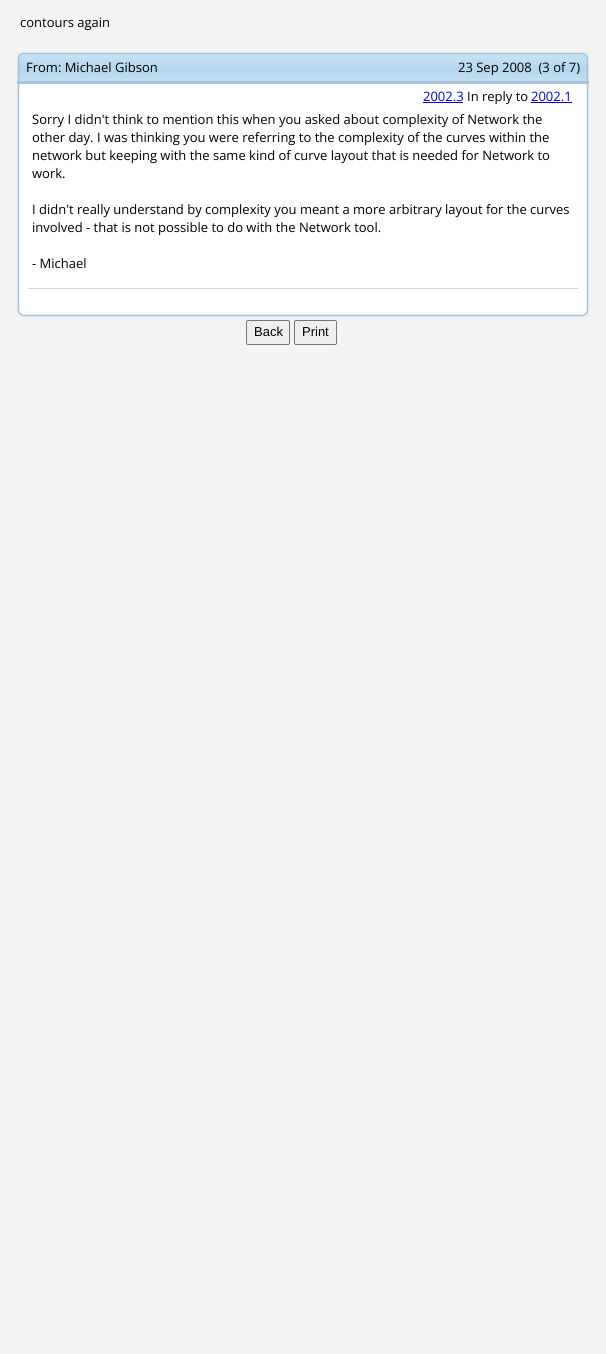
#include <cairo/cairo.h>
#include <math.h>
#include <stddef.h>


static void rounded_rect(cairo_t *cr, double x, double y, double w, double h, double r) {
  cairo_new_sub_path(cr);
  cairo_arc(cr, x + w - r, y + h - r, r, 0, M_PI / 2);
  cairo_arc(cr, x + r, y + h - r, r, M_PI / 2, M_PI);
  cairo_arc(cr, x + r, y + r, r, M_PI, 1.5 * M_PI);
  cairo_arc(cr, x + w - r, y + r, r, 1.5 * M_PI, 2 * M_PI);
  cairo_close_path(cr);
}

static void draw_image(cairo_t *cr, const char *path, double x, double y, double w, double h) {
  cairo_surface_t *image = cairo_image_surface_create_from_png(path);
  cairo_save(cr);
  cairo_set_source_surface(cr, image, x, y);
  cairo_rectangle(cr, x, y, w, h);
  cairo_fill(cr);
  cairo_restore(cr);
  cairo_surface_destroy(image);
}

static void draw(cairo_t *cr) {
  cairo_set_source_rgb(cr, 241 / 255.0, 243 / 255.0, 245 / 255.0);
  cairo_paint(cr);
  draw_image(cr, "images/1.png", 17, 52, 6, 6);
  draw_image(cr, "images/2.png", 23, 52, 560, 6);
  draw_image(cr, "images/3.png", 583, 52, 6, 6);
  draw_image(cr, "images/4.png", 17, 58, 6, 23);
  draw_image(cr, "images/5.png", 23, 58, 560, 23);
  draw_image(cr, "images/6.png", 583, 58, 6, 23);
  cairo_set_source_rgb(cr, 169 / 255.0, 194 / 255.0, 217 / 255.0);
  cairo_rectangle(cr, 17, 81, 572, 3);
  cairo_fill(cr);
  draw_image(cr, "images/7.png", 17, 84, 6, 227);
  cairo_set_source_rgb(cr, 1, 1, 1);
  cairo_rectangle(cr, 23, 84, 560, 227);
  cairo_fill(cr);
  cairo_set_source_rgb(cr, 0, 0, 238 / 255.0);
  cairo_rectangle(cr, 423, 102, 40, 1);
  cairo_fill(cr);
  cairo_rectangle(cr, 531, 102, 41, 1);
  cairo_fill(cr);
  cairo_set_source_rgb(cr, 200 / 255.0, 215 / 255.0, 230 / 255.0);
  cairo_rectangle(cr, 28, 288, 550, 1);
  cairo_fill(cr);
  draw_image(cr, "images/8.png", 583, 84, 6, 227);
  draw_image(cr, "images/9.png", 17, 311, 6, 6);
  draw_image(cr, "images/10.png", 23, 311, 560, 6);
  draw_image(cr, "images/11.png", 583, 311, 6, 6);
  cairo_set_source_rgb(cr, 239 / 255.0, 239 / 255.0, 239 / 255.0);
  rounded_rect(cr, 246.5, 320.5, 43, 24, 1.5);
  cairo_fill_preserve(cr);
  cairo_set_source_rgb(cr, 118 / 255.0, 118 / 255.0, 118 / 255.0);
  cairo_set_line_width(cr, 1);
  cairo_stroke(cr);
  cairo_set_source_rgb(cr, 239 / 255.0, 239 / 255.0, 239 / 255.0);
  rounded_rect(cr, 294.5, 320.5, 42, 24, 1.5);
  cairo_fill_preserve(cr);
  cairo_set_source_rgb(cr, 118 / 255.0, 118 / 255.0, 118 / 255.0);
  cairo_stroke(cr);
  cairo_select_font_face(cr, "Open Sans", CAIRO_FONT_SLANT_NORMAL, CAIRO_FONT_WEIGHT_NORMAL);
  cairo_set_font_size(cr, 13);
  cairo_set_source_rgb(cr, 0, 0, 0);
  cairo_move_to(cr, 20, 27);
  cairo_show_text(cr, "contours again");
  cairo_move_to(cr, 26, 72);
  cairo_show_text(cr, "From: Michael Gibson");
  cairo_move_to(cr, 458, 72);
  cairo_show_text(cr, "23 Sep 2008  (3 of 7)");
  cairo_set_source_rgb(cr, 0, 0, 238 / 255.0);
  cairo_move_to(cr, 423, 101);
  cairo_show_text(cr, "2002.3");
  cairo_set_source_rgb(cr, 0, 0, 0);
  cairo_move_to(cr, 467, 101);
  cairo_show_text(cr, "In reply to");
  cairo_set_source_rgb(cr, 0, 0, 238 / 255.0);
  cairo_move_to(cr, 531, 101);
  cairo_show_text(cr, "2002.1");
  cairo_set_source_rgb(cr, 0, 0, 0);
  cairo_move_to(cr, 32, 124);
  cairo_show_text(cr, "Sorry I didn't think to mention this when you asked about complexity of Network the");
  cairo_move_to(cr, 32, 142);
  cairo_show_text(cr, "other day. I was thinking you were referring to the complexity of the curves within the");
  cairo_move_to(cr, 32, 160);
  cairo_show_text(cr, "network but keeping with the same kind of curve layout that is needed for Network to");
  cairo_move_to(cr, 32, 178);
  cairo_show_text(cr, "work.");
  cairo_move_to(cr, 32, 214);
  cairo_show_text(cr, "I didn't really understand by complexity you meant a more arbitrary layout for the curves");
  cairo_move_to(cr, 32, 232);
  cairo_show_text(cr, "involved - that is not possible to do with the Network tool.");
  cairo_move_to(cr, 32, 268);
  cairo_show_text(cr, "- Michael");
  cairo_select_font_face(cr, "Liberation Sans", CAIRO_FONT_SLANT_NORMAL, CAIRO_FONT_WEIGHT_NORMAL);
  cairo_move_to(cr, 254, 336);
  cairo_show_text(cr, "Back");
  cairo_move_to(cr, 302, 336);
  cairo_show_text(cr, "Print");
}

int main(void) {
  cairo_surface_t *surface = cairo_image_surface_create(CAIRO_FORMAT_RGB24, 606, 1354);
  cairo_t *cr = cairo_create(surface);
  cairo_font_options_t *options = cairo_font_options_create();
  cairo_font_options_set_hint_metrics(options, CAIRO_HINT_METRICS_OFF);
  cairo_font_options_set_hint_style(options, CAIRO_HINT_STYLE_NONE);
  cairo_set_font_options(cr, options);
  cairo_set_miter_limit(cr, 4);
  draw(cr);
  cairo_surface_write_to_png(surface, "out.png");
  cairo_font_options_destroy(options);
  cairo_destroy(cr);
  cairo_surface_destroy(surface);
  return 0;
}
